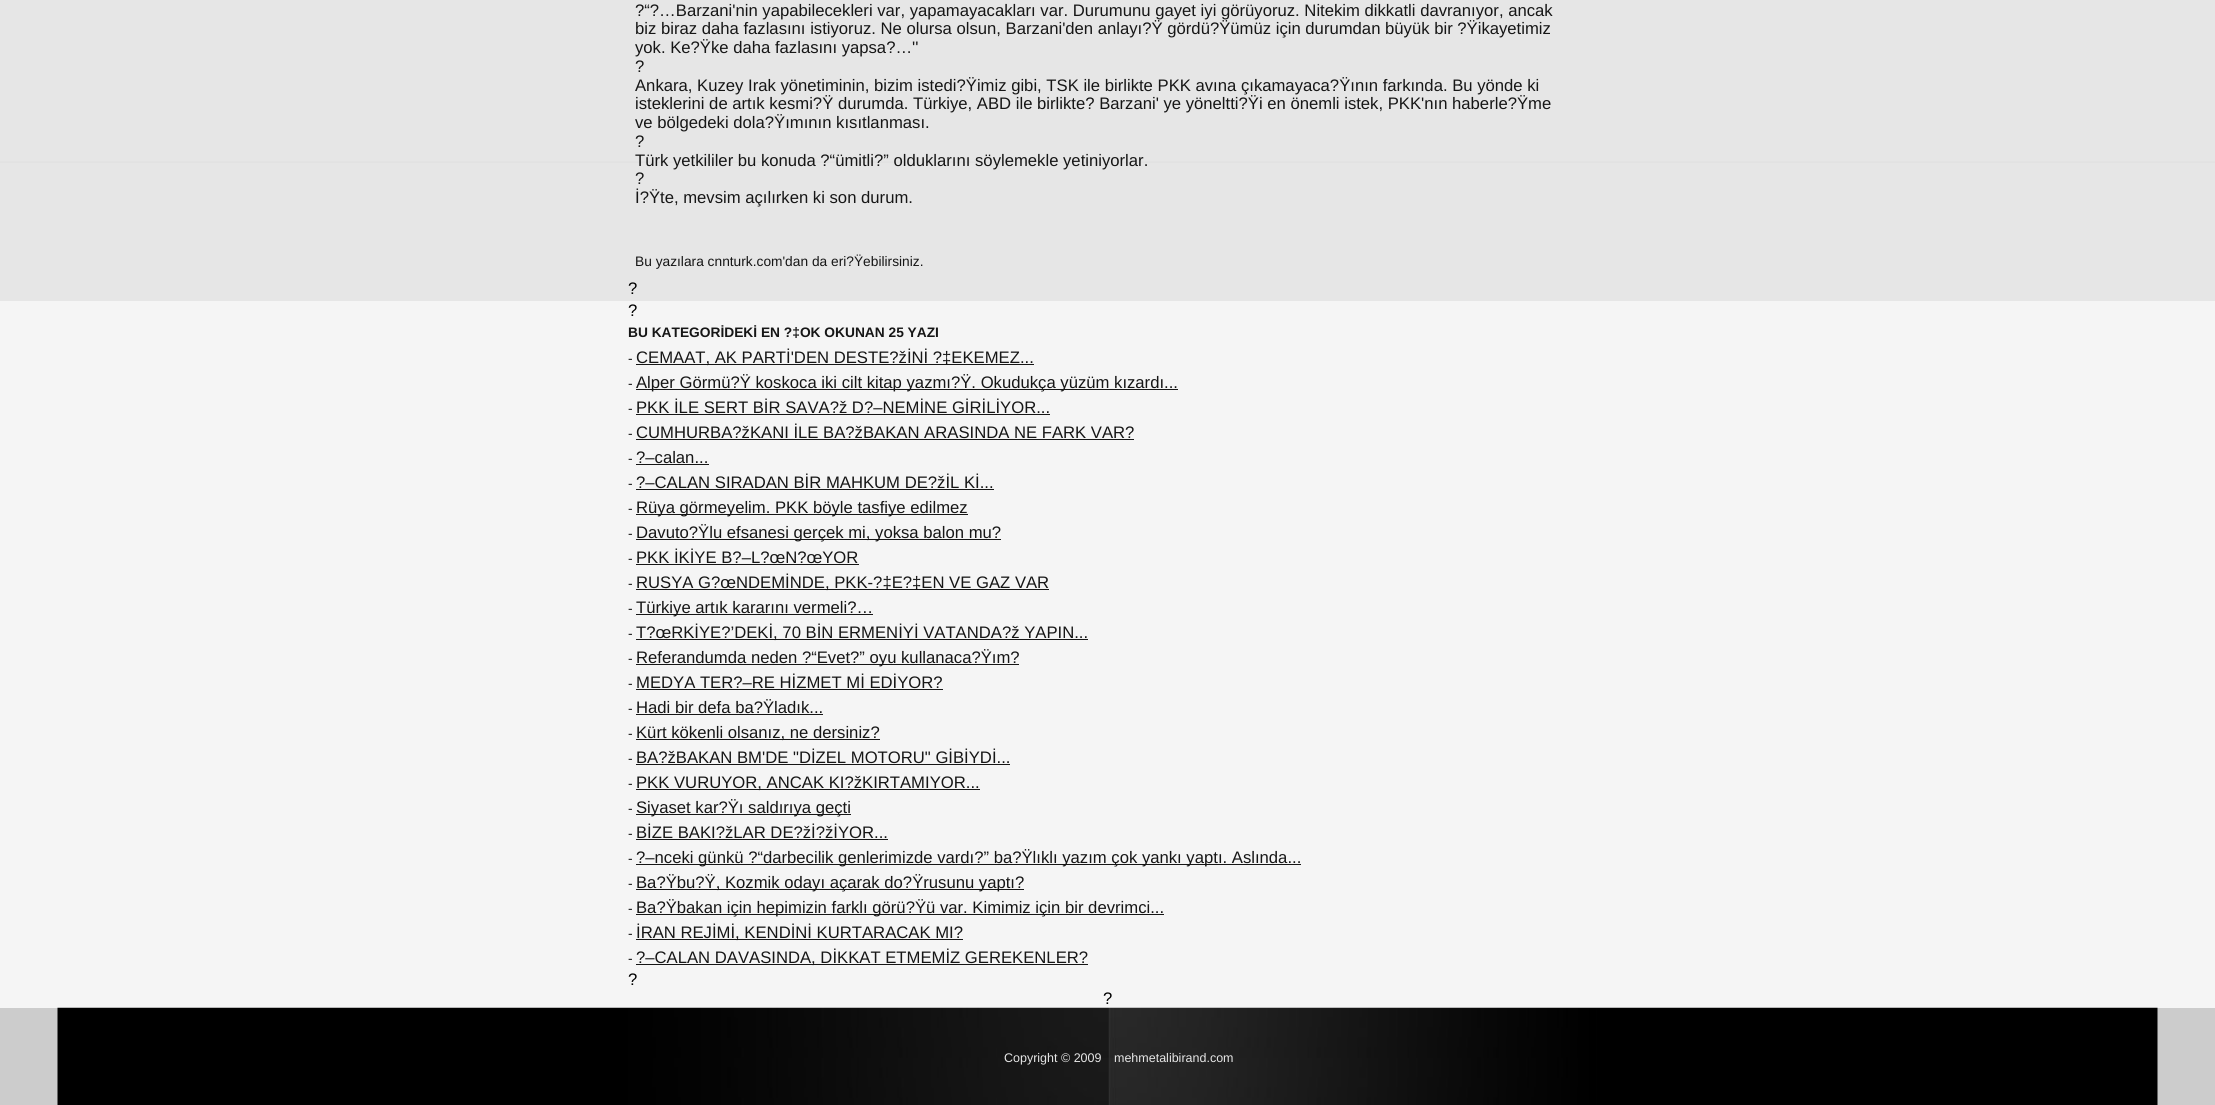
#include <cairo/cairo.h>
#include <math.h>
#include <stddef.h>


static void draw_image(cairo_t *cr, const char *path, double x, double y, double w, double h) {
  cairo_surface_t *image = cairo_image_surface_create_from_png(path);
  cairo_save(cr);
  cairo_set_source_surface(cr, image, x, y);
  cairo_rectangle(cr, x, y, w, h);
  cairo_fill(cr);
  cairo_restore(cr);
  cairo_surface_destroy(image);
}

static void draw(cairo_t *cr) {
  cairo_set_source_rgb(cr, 204 / 255.0, 204 / 255.0, 204 / 255.0);
  cairo_paint(cr);
  draw_image(cr, "images/1.png", 0, 0, 2215, 301);
  cairo_set_source_rgb(cr, 245 / 255.0, 245 / 255.0, 245 / 255.0);
  cairo_rectangle(cr, 0, 301, 2215, 707);
  cairo_fill(cr);
  cairo_set_source_rgb(cr, 22 / 255.0, 22 / 255.0, 22 / 255.0);
  cairo_rectangle(cr, 636, 364, 398, 1);
  cairo_fill(cr);
  cairo_rectangle(cr, 636, 389, 542, 1);
  cairo_fill(cr);
  cairo_rectangle(cr, 636, 414, 414, 1);
  cairo_fill(cr);
  cairo_rectangle(cr, 636, 439, 498, 1);
  cairo_fill(cr);
  cairo_rectangle(cr, 636, 464, 73, 1);
  cairo_fill(cr);
  cairo_rectangle(cr, 636, 489, 358, 1);
  cairo_fill(cr);
  cairo_rectangle(cr, 636, 514, 332, 1);
  cairo_fill(cr);
  cairo_rectangle(cr, 636, 539, 365, 1);
  cairo_fill(cr);
  cairo_rectangle(cr, 636, 564, 223, 1);
  cairo_fill(cr);
  cairo_rectangle(cr, 636, 589, 413, 1);
  cairo_fill(cr);
  cairo_rectangle(cr, 636, 614, 237, 1);
  cairo_fill(cr);
  cairo_rectangle(cr, 636, 639, 452, 1);
  cairo_fill(cr);
  cairo_rectangle(cr, 636, 664, 383, 1);
  cairo_fill(cr);
  cairo_rectangle(cr, 636, 689, 307, 1);
  cairo_fill(cr);
  cairo_rectangle(cr, 636, 714, 187, 1);
  cairo_fill(cr);
  cairo_rectangle(cr, 636, 739, 244, 1);
  cairo_fill(cr);
  cairo_rectangle(cr, 636, 764, 374, 1);
  cairo_fill(cr);
  cairo_rectangle(cr, 636, 789, 344, 1);
  cairo_fill(cr);
  cairo_rectangle(cr, 636, 814, 215, 1);
  cairo_fill(cr);
  cairo_rectangle(cr, 636, 839, 252, 1);
  cairo_fill(cr);
  cairo_rectangle(cr, 636, 864, 665, 1);
  cairo_fill(cr);
  cairo_rectangle(cr, 636, 889, 388, 1);
  cairo_fill(cr);
  cairo_rectangle(cr, 636, 914, 528, 1);
  cairo_fill(cr);
  cairo_rectangle(cr, 636, 939, 327, 1);
  cairo_fill(cr);
  cairo_rectangle(cr, 636, 964, 452, 1);
  cairo_fill(cr);
  draw_image(cr, "images/2.png", 57, 1007, 2101, 98);
  cairo_select_font_face(cr, "Liberation Sans", CAIRO_FONT_SLANT_NORMAL, CAIRO_FONT_WEIGHT_NORMAL);
  cairo_set_font_size(cr, 16.67);
  cairo_move_to(cr, 635, 16);
  cairo_show_text(cr, "?“?…Barzani'nin yapabilecekleri var, yapamayacakları var. Durumunu gayet iyi görüyoruz. Nitekim dikkatli davranıyor, ancak");
  cairo_move_to(cr, 635, 34);
  cairo_show_text(cr, "biz biraz daha fazlasını istiyoruz. Ne olursa olsun, Barzani'den anlayı?Ÿ gördü?Ÿümüz için durumdan büyük bir ?Ÿikayetimiz");
  cairo_move_to(cr, 635, 53);
  cairo_show_text(cr, "yok. Ke?Ÿke daha fazlasını yapsa?…''");
  cairo_move_to(cr, 635, 72);
  cairo_show_text(cr, "?");
  cairo_move_to(cr, 635, 91);
  cairo_show_text(cr, "Ankara, Kuzey Irak yönetiminin, bizim istedi?Ÿimiz gibi, TSK ile birlikte PKK avına çıkamayaca?Ÿının farkında. Bu yönde ki");
  cairo_move_to(cr, 635, 109);
  cairo_show_text(cr, "isteklerini de artık kesmi?Ÿ durumda. Türkiye, ABD ile birlikte? Barzani' ye yöneltti?Ÿi en önemli istek, PKK'nın haberle?Ÿme");
  cairo_move_to(cr, 635, 128);
  cairo_show_text(cr, "ve bölgedeki dola?Ÿımının kısıtlanması.");
  cairo_move_to(cr, 635, 147);
  cairo_show_text(cr, "?");
  cairo_move_to(cr, 635, 166);
  cairo_show_text(cr, "Türk yetkililer bu konuda ?“ümitli?” olduklarını söylemekle yetiniyorlar.");
  cairo_move_to(cr, 635, 184);
  cairo_show_text(cr, "?");
  cairo_move_to(cr, 635, 203);
  cairo_show_text(cr, "İ?Ÿte, mevsim açılırken ki son durum.");
  cairo_set_font_size(cr, 13.75);
  cairo_move_to(cr, 635, 266);
  cairo_show_text(cr, "Bu yazılara cnnturk.com'dan da eri?Ÿebilirsiniz.");
  cairo_set_font_size(cr, 16.67);
  cairo_set_source_rgb(cr, 0, 0, 0);
  cairo_move_to(cr, 628, 294);
  cairo_show_text(cr, "?");
  cairo_move_to(cr, 628, 316);
  cairo_show_text(cr, "?");
  cairo_select_font_face(cr, "Liberation Sans", CAIRO_FONT_SLANT_NORMAL, CAIRO_FONT_WEIGHT_BOLD);
  cairo_set_font_size(cr, 13.75);
  cairo_set_source_rgb(cr, 22 / 255.0, 22 / 255.0, 22 / 255.0);
  cairo_move_to(cr, 628, 337);
  cairo_show_text(cr, "BU KATEGORİDEKİ EN ?‡OK OKUNAN 25 YAZI");
  cairo_select_font_face(cr, "Liberation Sans", CAIRO_FONT_SLANT_NORMAL, CAIRO_FONT_WEIGHT_NORMAL);
  cairo_move_to(cr, 628, 363);
  cairo_show_text(cr, "-");
  cairo_set_font_size(cr, 16.67);
  cairo_move_to(cr, 636, 363);
  cairo_show_text(cr, "CEMAAT, AK PARTİ'DEN DESTE?žİNİ ?‡EKEMEZ...");
  cairo_set_font_size(cr, 13.75);
  cairo_move_to(cr, 628, 388);
  cairo_show_text(cr, "-");
  cairo_set_font_size(cr, 16.67);
  cairo_move_to(cr, 636, 388);
  cairo_show_text(cr, "Alper Görmü?Ÿ koskoca iki cilt kitap yazmı?Ÿ. Okudukça yüzüm kızardı...");
  cairo_set_font_size(cr, 13.75);
  cairo_move_to(cr, 628, 413);
  cairo_show_text(cr, "-");
  cairo_set_font_size(cr, 16.67);
  cairo_move_to(cr, 636, 413);
  cairo_show_text(cr, "PKK İLE SERT BİR SAVA?ž D?–NEMİNE GİRİLİYOR...");
  cairo_set_font_size(cr, 13.75);
  cairo_move_to(cr, 628, 438);
  cairo_show_text(cr, "-");
  cairo_set_font_size(cr, 16.67);
  cairo_move_to(cr, 636, 438);
  cairo_show_text(cr, "CUMHURBA?žKANI İLE BA?žBAKAN ARASINDA NE FARK VAR?");
  cairo_set_font_size(cr, 13.75);
  cairo_move_to(cr, 628, 463);
  cairo_show_text(cr, "-");
  cairo_set_font_size(cr, 16.67);
  cairo_move_to(cr, 636, 463);
  cairo_show_text(cr, "?–calan...");
  cairo_set_font_size(cr, 13.75);
  cairo_move_to(cr, 628, 488);
  cairo_show_text(cr, "-");
  cairo_set_font_size(cr, 16.67);
  cairo_move_to(cr, 636, 488);
  cairo_show_text(cr, "?–CALAN SIRADAN BİR MAHKUM DE?žİL Kİ...");
  cairo_set_font_size(cr, 13.75);
  cairo_move_to(cr, 628, 513);
  cairo_show_text(cr, "-");
  cairo_set_font_size(cr, 16.67);
  cairo_move_to(cr, 636, 513);
  cairo_show_text(cr, "Rüya görmeyelim. PKK böyle tasfiye edilmez");
  cairo_set_font_size(cr, 13.75);
  cairo_move_to(cr, 628, 538);
  cairo_show_text(cr, "-");
  cairo_set_font_size(cr, 16.67);
  cairo_move_to(cr, 636, 538);
  cairo_show_text(cr, "Davuto?Ÿlu efsanesi gerçek mi, yoksa balon mu?");
  cairo_set_font_size(cr, 13.75);
  cairo_move_to(cr, 628, 563);
  cairo_show_text(cr, "-");
  cairo_set_font_size(cr, 16.67);
  cairo_move_to(cr, 636, 563);
  cairo_show_text(cr, "PKK İKİYE B?–L?œN?œYOR");
  cairo_set_font_size(cr, 13.75);
  cairo_move_to(cr, 628, 588);
  cairo_show_text(cr, "-");
  cairo_set_font_size(cr, 16.67);
  cairo_move_to(cr, 636, 588);
  cairo_show_text(cr, "RUSYA G?œNDEMİNDE, PKK-?‡E?‡EN VE GAZ VAR");
  cairo_set_font_size(cr, 13.75);
  cairo_move_to(cr, 628, 613);
  cairo_show_text(cr, "-");
  cairo_set_font_size(cr, 16.67);
  cairo_move_to(cr, 636, 613);
  cairo_show_text(cr, "Türkiye artık kararını vermeli?…");
  cairo_set_font_size(cr, 13.75);
  cairo_move_to(cr, 628, 638);
  cairo_show_text(cr, "-");
  cairo_set_font_size(cr, 16.67);
  cairo_move_to(cr, 636, 638);
  cairo_show_text(cr, "T?œRKİYE?’DEKİ, 70 BİN ERMENİYİ VATANDA?ž YAPIN...");
  cairo_set_font_size(cr, 13.75);
  cairo_move_to(cr, 628, 663);
  cairo_show_text(cr, "-");
  cairo_set_font_size(cr, 16.67);
  cairo_move_to(cr, 636, 663);
  cairo_show_text(cr, "Referandumda neden ?“Evet?” oyu kullanaca?Ÿım?");
  cairo_set_font_size(cr, 13.75);
  cairo_move_to(cr, 628, 688);
  cairo_show_text(cr, "-");
  cairo_set_font_size(cr, 16.67);
  cairo_move_to(cr, 636, 688);
  cairo_show_text(cr, "MEDYA TER?–RE HİZMET Mİ EDİYOR?");
  cairo_set_font_size(cr, 13.75);
  cairo_move_to(cr, 628, 713);
  cairo_show_text(cr, "-");
  cairo_set_font_size(cr, 16.67);
  cairo_move_to(cr, 636, 713);
  cairo_show_text(cr, "Hadi bir defa ba?Ÿladık...");
  cairo_set_font_size(cr, 13.75);
  cairo_move_to(cr, 628, 738);
  cairo_show_text(cr, "-");
  cairo_set_font_size(cr, 16.67);
  cairo_move_to(cr, 636, 738);
  cairo_show_text(cr, "Kürt kökenli olsanız, ne dersiniz?");
  cairo_set_font_size(cr, 13.75);
  cairo_move_to(cr, 628, 763);
  cairo_show_text(cr, "-");
  cairo_set_font_size(cr, 16.67);
  cairo_move_to(cr, 636, 763);
  cairo_show_text(cr, "BA?žBAKAN BM'DE \"DİZEL MOTORU\" GİBİYDİ...");
  cairo_set_font_size(cr, 13.75);
  cairo_move_to(cr, 628, 788);
  cairo_show_text(cr, "-");
  cairo_set_font_size(cr, 16.67);
  cairo_move_to(cr, 636, 788);
  cairo_show_text(cr, "PKK VURUYOR, ANCAK KI?žKIRTAMIYOR...");
  cairo_set_font_size(cr, 13.75);
  cairo_move_to(cr, 628, 813);
  cairo_show_text(cr, "-");
  cairo_set_font_size(cr, 16.67);
  cairo_move_to(cr, 636, 813);
  cairo_show_text(cr, "Siyaset kar?Ÿı saldırıya geçti");
  cairo_set_font_size(cr, 13.75);
  cairo_move_to(cr, 628, 838);
  cairo_show_text(cr, "-");
  cairo_set_font_size(cr, 16.67);
  cairo_move_to(cr, 636, 838);
  cairo_show_text(cr, "BİZE BAKI?žLAR DE?žİ?žİYOR...");
  cairo_set_font_size(cr, 13.75);
  cairo_move_to(cr, 628, 863);
  cairo_show_text(cr, "-");
  cairo_set_font_size(cr, 16.67);
  cairo_move_to(cr, 636, 863);
  cairo_show_text(cr, "?–nceki günkü ?“darbecilik genlerimizde vardı?” ba?Ÿlıklı yazım çok yankı yaptı. Aslında...");
  cairo_set_font_size(cr, 13.75);
  cairo_move_to(cr, 628, 888);
  cairo_show_text(cr, "-");
  cairo_set_font_size(cr, 16.67);
  cairo_move_to(cr, 636, 888);
  cairo_show_text(cr, "Ba?Ÿbu?Ÿ, Kozmik odayı açarak do?Ÿrusunu yaptı?");
  cairo_set_font_size(cr, 13.75);
  cairo_move_to(cr, 628, 913);
  cairo_show_text(cr, "-");
  cairo_set_font_size(cr, 16.67);
  cairo_move_to(cr, 636, 913);
  cairo_show_text(cr, "Ba?Ÿbakan için hepimizin farklı görü?Ÿü var. Kimimiz için bir devrimci...");
  cairo_set_font_size(cr, 13.75);
  cairo_move_to(cr, 628, 938);
  cairo_show_text(cr, "-");
  cairo_set_font_size(cr, 16.67);
  cairo_move_to(cr, 636, 938);
  cairo_show_text(cr, "İRAN REJİMİ, KENDİNİ KURTARACAK MI?");
  cairo_set_font_size(cr, 13.75);
  cairo_move_to(cr, 628, 963);
  cairo_show_text(cr, "-");
  cairo_set_font_size(cr, 16.67);
  cairo_move_to(cr, 636, 963);
  cairo_show_text(cr, "?–CALAN DAVASINDA, DİKKAT ETMEMİZ GEREKENLER?");
  cairo_set_source_rgb(cr, 0, 0, 0);
  cairo_move_to(cr, 628, 985);
  cairo_show_text(cr, "?");
  cairo_move_to(cr, 1103, 1004);
  cairo_show_text(cr, "?");
  cairo_set_font_size(cr, 12.5);
  cairo_set_source_rgb(cr, 230 / 255.0, 230 / 255.0, 230 / 255.0);
  cairo_move_to(cr, 1004, 1062);
  cairo_show_text(cr, "Copyright © 2009");
  cairo_move_to(cr, 1114, 1062);
  cairo_show_text(cr, "mehmetalibirand.com");
}

int main(void) {
  cairo_surface_t *surface = cairo_image_surface_create(CAIRO_FORMAT_RGB24, 2215, 1105);
  cairo_t *cr = cairo_create(surface);
  cairo_font_options_t *options = cairo_font_options_create();
  cairo_font_options_set_hint_metrics(options, CAIRO_HINT_METRICS_OFF);
  cairo_font_options_set_hint_style(options, CAIRO_HINT_STYLE_NONE);
  cairo_set_font_options(cr, options);
  cairo_set_miter_limit(cr, 4);
  draw(cr);
  cairo_surface_write_to_png(surface, "out.png");
  cairo_font_options_destroy(options);
  cairo_destroy(cr);
  cairo_surface_destroy(surface);
  return 0;
}
